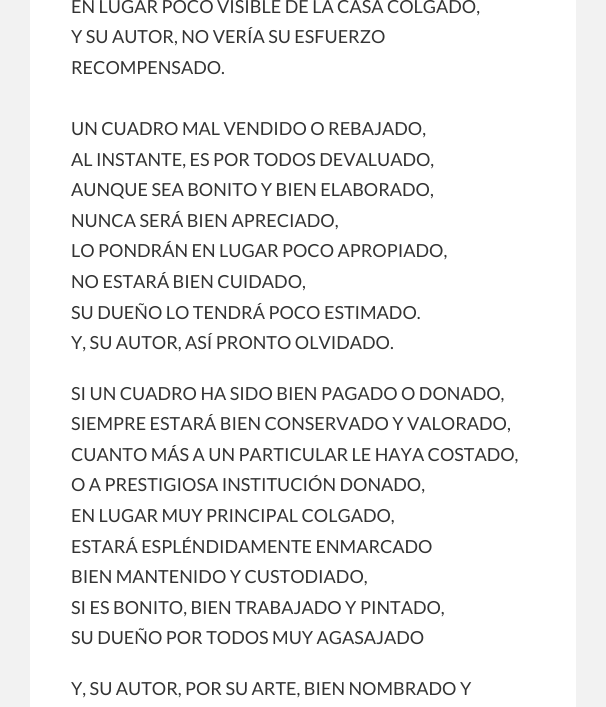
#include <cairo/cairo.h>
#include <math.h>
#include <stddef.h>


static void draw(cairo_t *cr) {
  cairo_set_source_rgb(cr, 242 / 255.0, 242 / 255.0, 242 / 255.0);
  cairo_paint(cr);
  cairo_set_source_rgb(cr, 1, 1, 1);
  cairo_rectangle(cr, 30, 0, 546, 707);
  cairo_fill(cr);
  cairo_select_font_face(cr, "Lato", CAIRO_FONT_SLANT_NORMAL, CAIRO_FONT_WEIGHT_NORMAL);
  cairo_set_font_size(cr, 18);
  cairo_set_source_rgb(cr, 51 / 255.0, 51 / 255.0, 51 / 255.0);
  cairo_move_to(cr, 71, 13);
  cairo_show_text(cr, "EN LUGAR POCO VISIBLE DE LA CASA COLGADO,");
  cairo_move_to(cr, 71, 43);
  cairo_show_text(cr, "Y SU AUTOR, NO VERÍA SU ESFUERZO");
  cairo_move_to(cr, 71, 74);
  cairo_show_text(cr, "RECOMPENSADO.");
  cairo_move_to(cr, 71, 135);
  cairo_show_text(cr, "UN CUADRO MAL VENDIDO O REBAJADO,");
  cairo_move_to(cr, 71, 166);
  cairo_show_text(cr, "AL INSTANTE, ES POR TODOS DEVALUADO,");
  cairo_move_to(cr, 71, 196);
  cairo_show_text(cr, "AUNQUE SEA BONITO Y BIEN ELABORADO,");
  cairo_move_to(cr, 71, 227);
  cairo_show_text(cr, "NUNCA SERÁ BIEN APRECIADO,");
  cairo_move_to(cr, 71, 257);
  cairo_show_text(cr, "LO PONDRÁN EN LUGAR POCO APROPIADO,");
  cairo_move_to(cr, 71, 288);
  cairo_show_text(cr, "NO ESTARÁ BIEN CUIDADO,");
  cairo_move_to(cr, 71, 319);
  cairo_show_text(cr, "SU DUEÑO LO TENDRÁ POCO ESTIMADO.");
  cairo_move_to(cr, 71, 349);
  cairo_show_text(cr, "Y, SU AUTOR, ASÍ PRONTO OLVIDADO.");
  cairo_move_to(cr, 71, 400);
  cairo_show_text(cr, "SI UN CUADRO HA SIDO BIEN PAGADO O DONADO,");
  cairo_move_to(cr, 71, 430);
  cairo_show_text(cr, "SIEMPRE ESTARÁ BIEN CONSERVADO Y VALORADO,");
  cairo_move_to(cr, 71, 461);
  cairo_show_text(cr, "CUANTO MÁS A UN PARTICULAR LE HAYA COSTADO,");
  cairo_move_to(cr, 71, 491);
  cairo_show_text(cr, "O A PRESTIGIOSA INSTITUCIÓN DONADO,");
  cairo_move_to(cr, 71, 522);
  cairo_show_text(cr, "EN LUGAR MUY PRINCIPAL COLGADO,");
  cairo_move_to(cr, 71, 553);
  cairo_show_text(cr, "ESTARÁ ESPLÉNDIDAMENTE ENMARCADO");
  cairo_move_to(cr, 71, 583);
  cairo_show_text(cr, "BIEN MANTENIDO Y CUSTODIADO,");
  cairo_move_to(cr, 71, 614);
  cairo_show_text(cr, "SI ES BONITO, BIEN TRABAJADO Y PINTADO,");
  cairo_move_to(cr, 71, 644);
  cairo_show_text(cr, "SU DUEÑO POR TODOS MUY AGASAJADO");
  cairo_move_to(cr, 71, 695);
  cairo_show_text(cr, "Y, SU AUTOR, POR SU ARTE, BIEN NOMBRADO Y");
}

int main(void) {
  cairo_surface_t *surface = cairo_image_surface_create(CAIRO_FORMAT_RGB24, 606, 707);
  cairo_t *cr = cairo_create(surface);
  cairo_font_options_t *options = cairo_font_options_create();
  cairo_font_options_set_hint_metrics(options, CAIRO_HINT_METRICS_OFF);
  cairo_font_options_set_hint_style(options, CAIRO_HINT_STYLE_NONE);
  cairo_set_font_options(cr, options);
  cairo_set_miter_limit(cr, 4);
  draw(cr);
  cairo_surface_write_to_png(surface, "out.png");
  cairo_font_options_destroy(options);
  cairo_destroy(cr);
  cairo_surface_destroy(surface);
  return 0;
}
